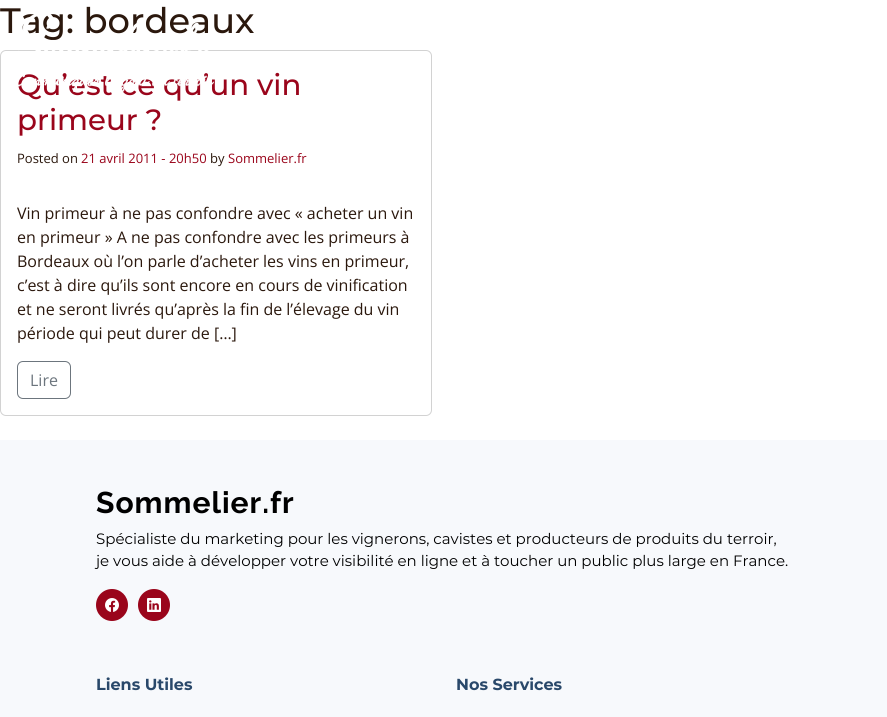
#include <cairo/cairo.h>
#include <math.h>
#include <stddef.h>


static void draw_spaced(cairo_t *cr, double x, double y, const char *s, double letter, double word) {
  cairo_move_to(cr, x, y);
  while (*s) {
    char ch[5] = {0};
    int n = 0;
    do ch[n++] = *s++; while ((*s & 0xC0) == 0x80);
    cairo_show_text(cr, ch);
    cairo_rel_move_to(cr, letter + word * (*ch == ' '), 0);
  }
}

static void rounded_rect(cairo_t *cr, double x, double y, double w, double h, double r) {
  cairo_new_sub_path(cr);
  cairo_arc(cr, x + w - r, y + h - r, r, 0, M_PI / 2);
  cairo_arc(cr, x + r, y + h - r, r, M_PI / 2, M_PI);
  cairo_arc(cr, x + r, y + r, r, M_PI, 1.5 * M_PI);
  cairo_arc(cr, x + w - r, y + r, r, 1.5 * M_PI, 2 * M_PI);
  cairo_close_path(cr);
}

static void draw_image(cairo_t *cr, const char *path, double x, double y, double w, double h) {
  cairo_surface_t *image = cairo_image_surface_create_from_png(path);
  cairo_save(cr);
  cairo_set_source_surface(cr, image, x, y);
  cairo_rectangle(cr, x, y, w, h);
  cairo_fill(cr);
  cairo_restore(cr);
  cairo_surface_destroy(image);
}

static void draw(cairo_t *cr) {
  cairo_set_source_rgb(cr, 1, 1, 1);
  cairo_paint(cr);
  rounded_rect(cr, 0.5, 50.5, 431, 365, 5.5);
  cairo_set_source_rgb(cr, 210 / 255.0, 210 / 255.0, 210 / 255.0);
  cairo_set_line_width(cr, 1);
  cairo_stroke(cr);
  rounded_rect(cr, 17.5, 361.5, 53, 37, 5.5);
  cairo_set_source_rgb(cr, 108 / 255.0, 117 / 255.0, 125 / 255.0);
  cairo_stroke(cr);
  cairo_set_source_rgb(cr, 247 / 255.0, 249 / 255.0, 252 / 255.0);
  cairo_rectangle(cr, 0, 440, 887, 277);
  cairo_fill(cr);
  cairo_set_source_rgb(cr, 154 / 255.0, 5 / 255.0, 27 / 255.0);
  cairo_arc(cr, 112, 605, 16, 0, 2 * M_PI);
  cairo_fill(cr);
  draw_image(cr, "images/2.png", 105, 598, 14, 14);
  cairo_arc(cr, 154, 605, 16, 0, 2 * M_PI);
  cairo_fill(cr);
  draw_image(cr, "images/3.png", 147, 598, 14, 14);
  cairo_select_font_face(cr, "Montserrat Medium", CAIRO_FONT_SLANT_NORMAL, CAIRO_FONT_WEIGHT_NORMAL);
  cairo_set_font_size(cr, 35.25);
  cairo_set_source_rgb(cr, 43 / 255.0, 24 / 255.0, 13 / 255.0);
  cairo_move_to(cr, 0, 33);
  cairo_show_text(cr, "Tag: bordeaux");
  cairo_set_font_size(cr, 29.25);
  cairo_set_source_rgb(cr, 154 / 255.0, 5 / 255.0, 27 / 255.0);
  cairo_move_to(cr, 17, 95);
  cairo_show_text(cr, "Qu’est ce qu’un vin");
  cairo_move_to(cr, 17, 130);
  cairo_show_text(cr, "primeur ?");
  cairo_select_font_face(cr, "Open Sans", CAIRO_FONT_SLANT_NORMAL, CAIRO_FONT_WEIGHT_NORMAL);
  cairo_set_font_size(cr, 13);
  cairo_set_source_rgb(cr, 43 / 255.0, 24 / 255.0, 13 / 255.0);
  cairo_move_to(cr, 17, 163);
  cairo_show_text(cr, "Posted on");
  cairo_set_source_rgb(cr, 154 / 255.0, 5 / 255.0, 27 / 255.0);
  cairo_move_to(cr, 81, 163);
  cairo_show_text(cr, "21 avril 2011 - 20h50");
  cairo_set_source_rgb(cr, 43 / 255.0, 24 / 255.0, 13 / 255.0);
  cairo_move_to(cr, 210, 163);
  cairo_show_text(cr, "by");
  cairo_set_source_rgb(cr, 154 / 255.0, 5 / 255.0, 27 / 255.0);
  cairo_move_to(cr, 228, 163);
  cairo_show_text(cr, "Sommelier.fr");
  cairo_set_font_size(cr, 16);
  cairo_set_source_rgb(cr, 43 / 255.0, 24 / 255.0, 13 / 255.0);
  cairo_move_to(cr, 17, 219);
  cairo_show_text(cr, "Vin primeur à ne pas confondre avec « acheter un vin");
  cairo_move_to(cr, 17, 243);
  cairo_show_text(cr, "en primeur » A ne pas confondre avec les primeurs à");
  cairo_move_to(cr, 17, 267);
  cairo_show_text(cr, "Bordeaux où l’on parle d’acheter les vins en primeur,");
  cairo_move_to(cr, 17, 291);
  cairo_show_text(cr, "c’est à dire qu’ils sont encore en cours de vinification");
  cairo_move_to(cr, 17, 315);
  cairo_show_text(cr, "et ne seront livrés qu’après la fin de l’élevage du vin");
  cairo_move_to(cr, 17, 339);
  cairo_show_text(cr, "période qui peut durer de […]");
  cairo_set_source_rgb(cr, 108 / 255.0, 117 / 255.0, 125 / 255.0);
  cairo_move_to(cr, 30, 386);
  cairo_show_text(cr, "Lire");
  draw_image(cr, "images/1.png", 18, 14, 196, 78);
  cairo_select_font_face(cr, "Raleway", CAIRO_FONT_SLANT_NORMAL, CAIRO_FONT_WEIGHT_BOLD);
  cairo_set_font_size(cr, 30);
  cairo_set_source_rgb(cr, 0, 0, 0);
  draw_spaced(cr, 96, 513, "Sommelier.fr", 1, 0);
  cairo_select_font_face(cr, "Montserrat", CAIRO_FONT_SLANT_NORMAL, CAIRO_FONT_WEIGHT_NORMAL);
  cairo_set_font_size(cr, 15);
  cairo_move_to(cr, 96, 544);
  cairo_show_text(cr, "Spécialiste du marketing pour les vignerons, cavistes et producteurs de produits du terroir,");
  cairo_move_to(cr, 96, 566);
  cairo_show_text(cr, "je vous aide à développer votre visibilité en ligne et à toucher un public plus large en France.");
  cairo_select_font_face(cr, "Montserrat", CAIRO_FONT_SLANT_NORMAL, CAIRO_FONT_WEIGHT_BOLD);
  cairo_set_font_size(cr, 16);
  cairo_set_source_rgb(cr, 41 / 255.0, 72 / 255.0, 106 / 255.0);
  cairo_move_to(cr, 96, 690);
  cairo_show_text(cr, "Liens Utiles");
  cairo_move_to(cr, 456, 690);
  cairo_show_text(cr, "Nos Services");
}

int main(void) {
  cairo_surface_t *surface = cairo_image_surface_create(CAIRO_FORMAT_RGB24, 887, 717);
  cairo_t *cr = cairo_create(surface);
  cairo_font_options_t *options = cairo_font_options_create();
  cairo_font_options_set_hint_metrics(options, CAIRO_HINT_METRICS_OFF);
  cairo_font_options_set_hint_style(options, CAIRO_HINT_STYLE_NONE);
  cairo_set_font_options(cr, options);
  cairo_set_miter_limit(cr, 4);
  draw(cr);
  cairo_surface_write_to_png(surface, "out.png");
  cairo_font_options_destroy(options);
  cairo_destroy(cr);
  cairo_surface_destroy(surface);
  return 0;
}
